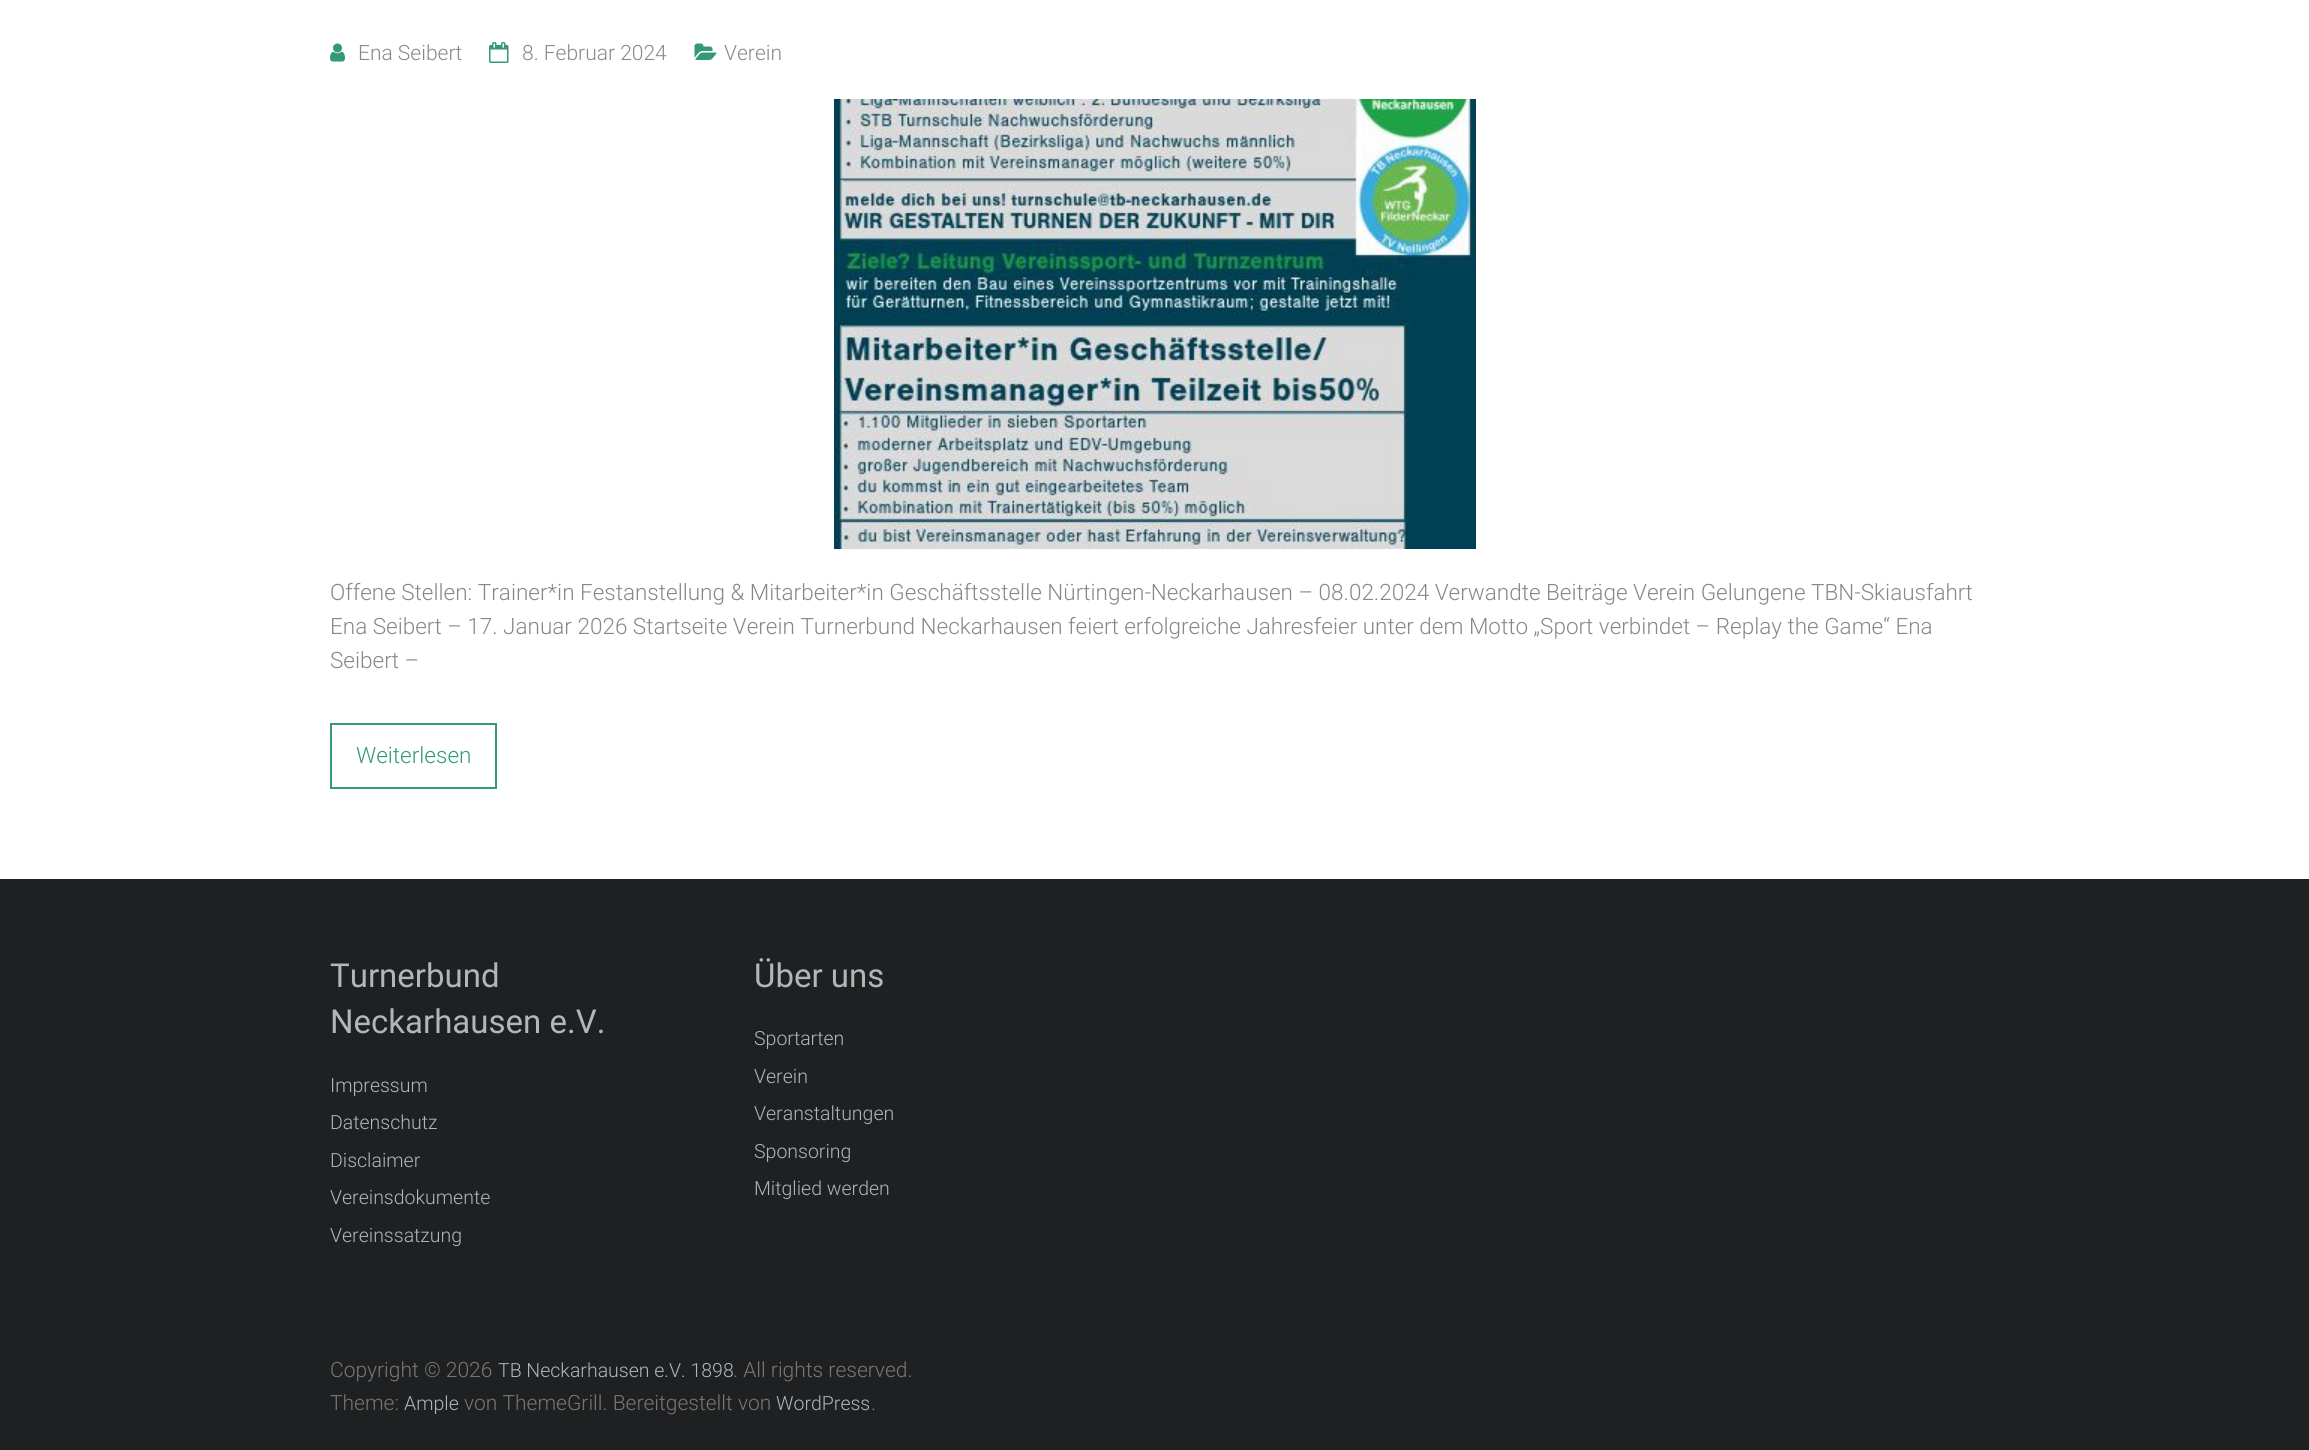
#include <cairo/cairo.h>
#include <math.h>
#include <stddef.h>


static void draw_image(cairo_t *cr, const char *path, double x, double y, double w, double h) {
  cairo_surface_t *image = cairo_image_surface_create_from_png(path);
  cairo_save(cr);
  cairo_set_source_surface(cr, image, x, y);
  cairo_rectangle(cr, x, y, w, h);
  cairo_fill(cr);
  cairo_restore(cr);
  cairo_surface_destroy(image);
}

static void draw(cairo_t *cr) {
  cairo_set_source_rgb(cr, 1, 1, 1);
  cairo_paint(cr);
  draw_image(cr, "images/1.png", 330, 43, 15, 19);
  draw_image(cr, "images/2.png", 489, 42, 20, 21);
  draw_image(cr, "images/3.png", 694, 43, 23, 17);
  draw_image(cr, "images/4.png", 834, 99, 642, 450);
  cairo_rectangle(cr, 331, 724, 165, 64);
  cairo_set_source_rgb(cr, 51 / 255.0, 153 / 255.0, 119 / 255.0);
  cairo_stroke(cr);
  cairo_set_source_rgb(cr, 31 / 255.0, 32 / 255.0, 33 / 255.0);
  cairo_rectangle(cr, 0, 879, 2309, 571);
  cairo_fill(cr);
  cairo_select_font_face(cr, "Roboto Light", CAIRO_FONT_SLANT_NORMAL, CAIRO_FONT_WEIGHT_NORMAL);
  cairo_set_font_size(cr, 21);
  cairo_set_source_rgb(cr, 136 / 255.0, 136 / 255.0, 136 / 255.0);
  cairo_move_to(cr, 358, 60);
  cairo_show_text(cr, "Ena Seibert");
  cairo_move_to(cr, 522, 60);
  cairo_show_text(cr, "8. Februar 2024");
  cairo_move_to(cr, 724, 60);
  cairo_show_text(cr, "Verein");
  cairo_set_font_size(cr, 22.5);
  cairo_move_to(cr, 330, 600);
  cairo_show_text(cr, "Offene Stellen: Trainer*in Festanstellung & Mitarbeiter*in Geschäftsstelle Nürtingen-Neckarhausen – 08.02.2024 Verwandte Beiträge Verein Gelungene TBN-Skiausfahrt");
  cairo_move_to(cr, 330, 634);
  cairo_show_text(cr, "Ena Seibert – 17. Januar 2026 Startseite Verein Turnerbund Neckarhausen feiert erfolgreiche Jahresfeier unter dem Motto „Sport verbindet – Replay the Game“ Ena");
  cairo_move_to(cr, 330, 668);
  cairo_show_text(cr, "Seibert –");
  cairo_set_source_rgb(cr, 51 / 255.0, 153 / 255.0, 119 / 255.0);
  cairo_move_to(cr, 356, 763);
  cairo_show_text(cr, "Weiterlesen");
  cairo_select_font_face(cr, "Roboto", CAIRO_FONT_SLANT_NORMAL, CAIRO_FONT_WEIGHT_NORMAL);
  cairo_set_font_size(cr, 33);
  cairo_set_source_rgb(cr, 177 / 255.0, 182 / 255.0, 182 / 255.0);
  cairo_move_to(cr, 330, 987);
  cairo_show_text(cr, "Turnerbund");
  cairo_move_to(cr, 330, 1033);
  cairo_show_text(cr, "Neckarhausen e.V.");
  cairo_select_font_face(cr, "Roboto Light", CAIRO_FONT_SLANT_NORMAL, CAIRO_FONT_WEIGHT_NORMAL);
  cairo_set_font_size(cr, 19.5);
  cairo_move_to(cr, 330, 1092);
  cairo_show_text(cr, "Impressum");
  cairo_move_to(cr, 330, 1129);
  cairo_show_text(cr, "Datenschutz");
  cairo_move_to(cr, 330, 1167);
  cairo_show_text(cr, "Disclaimer");
  cairo_move_to(cr, 330, 1204);
  cairo_show_text(cr, "Vereinsdokumente");
  cairo_move_to(cr, 330, 1242);
  cairo_show_text(cr, "Vereinssatzung");
  cairo_select_font_face(cr, "Roboto", CAIRO_FONT_SLANT_NORMAL, CAIRO_FONT_WEIGHT_NORMAL);
  cairo_set_font_size(cr, 33);
  cairo_move_to(cr, 754, 987);
  cairo_show_text(cr, "Über uns");
  cairo_select_font_face(cr, "Roboto Light", CAIRO_FONT_SLANT_NORMAL, CAIRO_FONT_WEIGHT_NORMAL);
  cairo_set_font_size(cr, 19.5);
  cairo_move_to(cr, 754, 1045);
  cairo_show_text(cr, "Sportarten");
  cairo_move_to(cr, 754, 1083);
  cairo_show_text(cr, "Verein");
  cairo_move_to(cr, 754, 1120);
  cairo_show_text(cr, "Veranstaltungen");
  cairo_move_to(cr, 754, 1158);
  cairo_show_text(cr, "Sponsoring");
  cairo_move_to(cr, 754, 1195);
  cairo_show_text(cr, "Mitglied werden");
  cairo_set_font_size(cr, 21);
  cairo_set_source_rgb(cr, 119 / 255.0, 119 / 255.0, 119 / 255.0);
  cairo_move_to(cr, 330, 1377);
  cairo_show_text(cr, "Copyright © 2026");
  cairo_set_font_size(cr, 19.5);
  cairo_set_source_rgb(cr, 177 / 255.0, 182 / 255.0, 182 / 255.0);
  cairo_move_to(cr, 498, 1377);
  cairo_show_text(cr, "TB Neckarhausen e.V. 1898");
  cairo_set_font_size(cr, 21);
  cairo_set_source_rgb(cr, 119 / 255.0, 119 / 255.0, 119 / 255.0);
  cairo_move_to(cr, 733, 1377);
  cairo_show_text(cr, ". All rights reserved.");
  cairo_move_to(cr, 330, 1410);
  cairo_show_text(cr, "Theme:");
  cairo_set_font_size(cr, 19.5);
  cairo_set_source_rgb(cr, 177 / 255.0, 182 / 255.0, 182 / 255.0);
  cairo_move_to(cr, 404, 1410);
  cairo_show_text(cr, "Ample");
  cairo_set_font_size(cr, 21);
  cairo_set_source_rgb(cr, 119 / 255.0, 119 / 255.0, 119 / 255.0);
  cairo_move_to(cr, 464, 1410);
  cairo_show_text(cr, "von ThemeGrill. Bereitgestellt von");
  cairo_set_font_size(cr, 19.5);
  cairo_set_source_rgb(cr, 177 / 255.0, 182 / 255.0, 182 / 255.0);
  cairo_move_to(cr, 776, 1410);
  cairo_show_text(cr, "WordPress");
  cairo_set_font_size(cr, 21);
  cairo_set_source_rgb(cr, 119 / 255.0, 119 / 255.0, 119 / 255.0);
  cairo_move_to(cr, 871, 1410);
  cairo_show_text(cr, ".");
}

int main(void) {
  cairo_surface_t *surface = cairo_image_surface_create(CAIRO_FORMAT_RGB24, 2309, 1450);
  cairo_t *cr = cairo_create(surface);
  cairo_font_options_t *options = cairo_font_options_create();
  cairo_font_options_set_hint_metrics(options, CAIRO_HINT_METRICS_OFF);
  cairo_font_options_set_hint_style(options, CAIRO_HINT_STYLE_NONE);
  cairo_set_font_options(cr, options);
  cairo_set_miter_limit(cr, 4);
  draw(cr);
  cairo_surface_write_to_png(surface, "out.png");
  cairo_font_options_destroy(options);
  cairo_destroy(cr);
  cairo_surface_destroy(surface);
  return 0;
}
